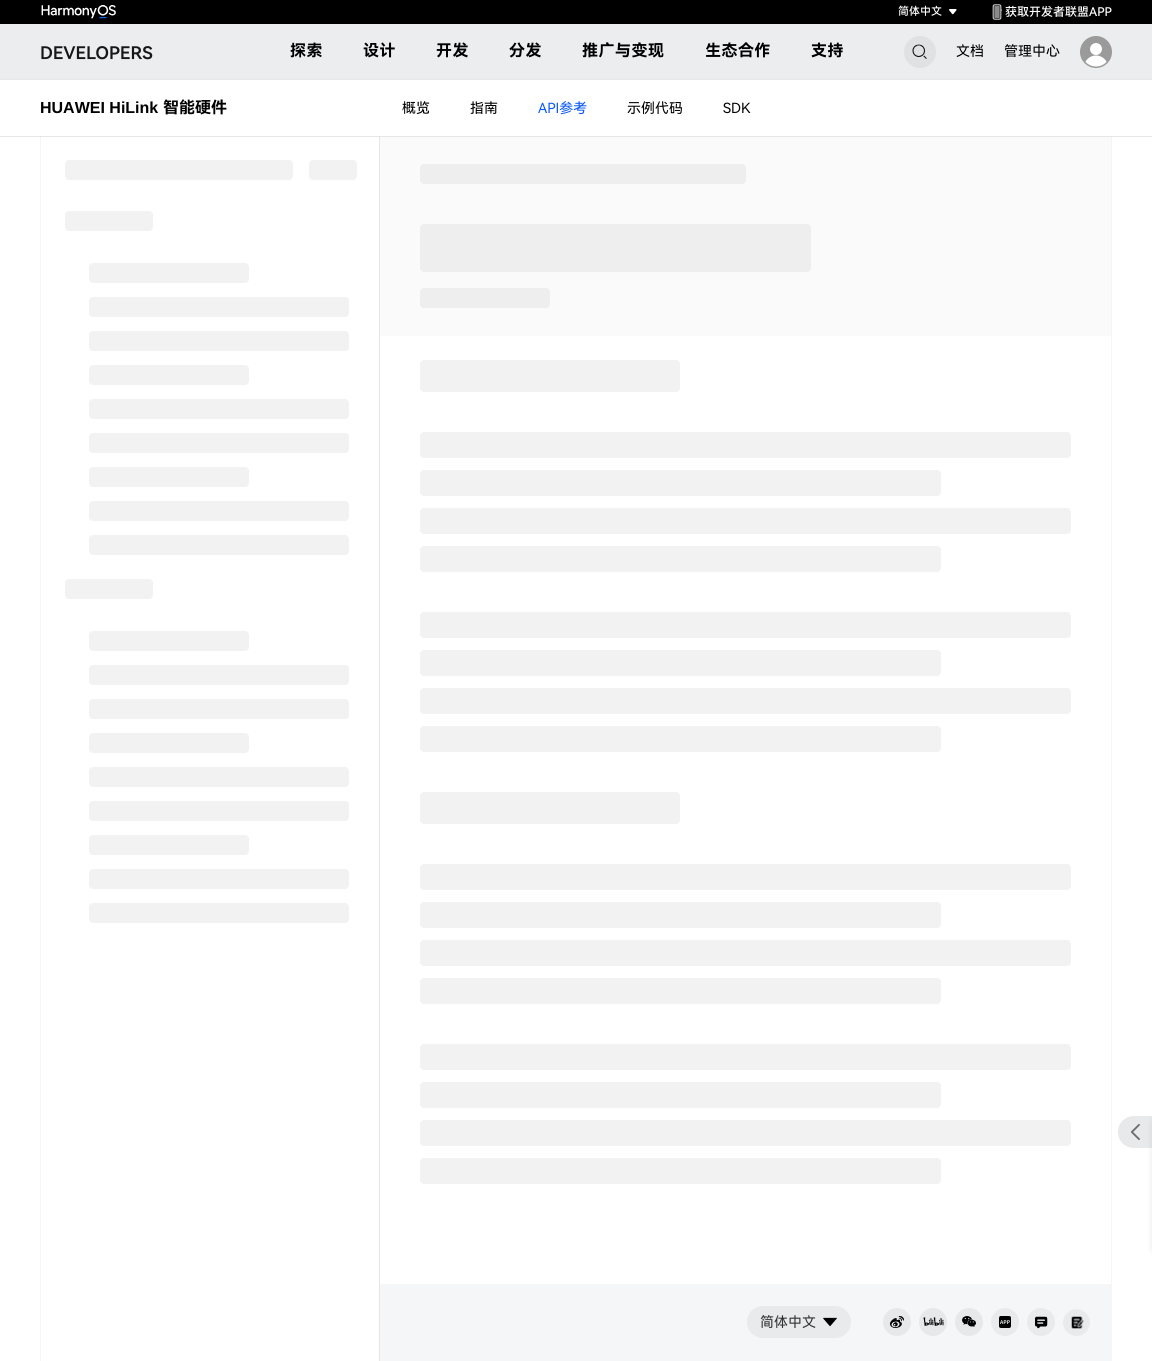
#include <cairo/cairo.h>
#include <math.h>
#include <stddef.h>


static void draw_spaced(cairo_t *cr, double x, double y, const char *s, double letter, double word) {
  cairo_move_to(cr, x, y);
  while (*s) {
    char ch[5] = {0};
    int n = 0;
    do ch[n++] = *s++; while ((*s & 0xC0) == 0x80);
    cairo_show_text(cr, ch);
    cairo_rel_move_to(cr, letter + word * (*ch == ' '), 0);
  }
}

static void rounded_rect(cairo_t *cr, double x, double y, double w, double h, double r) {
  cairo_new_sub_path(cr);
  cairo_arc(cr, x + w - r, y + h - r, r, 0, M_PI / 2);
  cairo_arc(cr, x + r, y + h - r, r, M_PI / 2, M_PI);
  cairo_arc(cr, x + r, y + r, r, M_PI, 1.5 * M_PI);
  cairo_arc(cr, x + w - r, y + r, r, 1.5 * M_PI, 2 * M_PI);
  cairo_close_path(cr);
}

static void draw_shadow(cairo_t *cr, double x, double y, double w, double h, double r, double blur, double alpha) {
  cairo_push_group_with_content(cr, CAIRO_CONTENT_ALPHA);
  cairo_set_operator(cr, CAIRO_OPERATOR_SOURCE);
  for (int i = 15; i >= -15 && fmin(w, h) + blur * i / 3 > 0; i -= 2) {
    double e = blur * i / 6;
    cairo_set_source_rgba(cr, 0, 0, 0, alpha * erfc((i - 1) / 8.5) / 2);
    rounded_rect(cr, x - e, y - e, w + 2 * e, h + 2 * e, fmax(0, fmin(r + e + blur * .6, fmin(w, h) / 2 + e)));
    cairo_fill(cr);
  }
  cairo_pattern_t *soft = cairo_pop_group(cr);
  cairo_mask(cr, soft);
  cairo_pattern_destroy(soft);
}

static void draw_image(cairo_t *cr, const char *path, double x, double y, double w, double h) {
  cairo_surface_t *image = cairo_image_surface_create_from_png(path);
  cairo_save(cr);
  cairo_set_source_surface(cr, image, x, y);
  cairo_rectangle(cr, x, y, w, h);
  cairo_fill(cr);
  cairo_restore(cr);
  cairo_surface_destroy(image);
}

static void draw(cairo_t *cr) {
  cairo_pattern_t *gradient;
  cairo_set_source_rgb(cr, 1, 1, 1);
  cairo_paint(cr);
  cairo_set_source_rgb(cr, 230 / 255.0, 230 / 255.0, 230 / 255.0);
  cairo_rectangle(cr, 0, 136, 1152, 1);
  cairo_fill(cr);
  cairo_set_source_rgb(cr, 0, 0, 0);
  cairo_rectangle(cr, 0, 0, 1152, 24);
  cairo_fill(cr);
  draw_image(cr, "images/1.png", 41, 5, 75, 14);
  draw_image(cr, "images/2.png", 949, 9, 8, 6);
  draw_image(cr, "images/3.png", 992, 4, 10, 16);
  cairo_set_source_rgb(cr, 235 / 255.0, 237 / 255.0, 239 / 255.0);
  cairo_rectangle(cr, 0, 24, 1152, 55);
  cairo_fill(cr);
  cairo_set_source_rgb(cr, 232 / 255.0, 232 / 255.0, 232 / 255.0);
  cairo_rectangle(cr, 0, 79, 1152, 1);
  cairo_fill(cr);
  draw_image(cr, "images/4.png", 41, 46, 112, 14);
  cairo_set_source_rgb(cr, 223 / 255.0, 225 / 255.0, 227 / 255.0);
  cairo_arc(cr, 920, 52, 16, 0, 2 * M_PI);
  cairo_fill(cr);
  draw_image(cr, "images/5.png", 912, 44, 15, 15);
  draw_image(cr, "images/6.png", 1080, 36, 32, 32);
  cairo_set_source_rgb(cr, 230 / 255.0, 230 / 255.0, 230 / 255.0);
  cairo_rectangle(cr, 379, 136, 1, 1225);
  cairo_fill(cr);
  cairo_set_source_rgb(cr, 223 / 255.0, 223 / 255.0, 223 / 255.0);
  cairo_rectangle(cr, 379, 136, 1, 1);
  cairo_fill(cr);
  cairo_set_source_rgb(cr, 245 / 255.0, 245 / 255.0, 245 / 255.0);
  cairo_rectangle(cr, 40, 136, 1, 1225);
  cairo_fill(cr);
  cairo_set_source_rgb(cr, 227 / 255.0, 227 / 255.0, 227 / 255.0);
  cairo_rectangle(cr, 40, 136, 1, 1);
  cairo_fill(cr);
  gradient = cairo_pattern_create_linear(65, 170, 977, 170);
  cairo_pattern_add_color_stop_rgba(gradient, 0.25, 242 / 255.0, 242 / 255.0, 242 / 255.0, 1);
  cairo_pattern_add_color_stop_rgba(gradient, 0.37, 225 / 255.0, 225 / 255.0, 225 / 255.0, 1);
  cairo_pattern_add_color_stop_rgba(gradient, 0.63, 242 / 255.0, 242 / 255.0, 242 / 255.0, 1);
  cairo_set_source(cr, gradient);
  cairo_pattern_destroy(gradient);
  rounded_rect(cr, 65, 160, 228, 20, 4);
  cairo_fill(cr);
  gradient = cairo_pattern_create_linear(309, 170, 501, 170);
  cairo_pattern_add_color_stop_rgba(gradient, 0.25, 242 / 255.0, 242 / 255.0, 242 / 255.0, 1);
  cairo_pattern_add_color_stop_rgba(gradient, 0.37, 225 / 255.0, 225 / 255.0, 225 / 255.0, 1);
  cairo_pattern_add_color_stop_rgba(gradient, 0.63, 242 / 255.0, 242 / 255.0, 242 / 255.0, 1);
  cairo_set_source(cr, gradient);
  cairo_pattern_destroy(gradient);
  rounded_rect(cr, 309, 160, 48, 20, 4);
  cairo_fill(cr);
  gradient = cairo_pattern_create_linear(65, 221, 417, 221);
  cairo_pattern_add_color_stop_rgba(gradient, 0.25, 242 / 255.0, 242 / 255.0, 242 / 255.0, 1);
  cairo_pattern_add_color_stop_rgba(gradient, 0.37, 225 / 255.0, 225 / 255.0, 225 / 255.0, 1);
  cairo_pattern_add_color_stop_rgba(gradient, 0.63, 242 / 255.0, 242 / 255.0, 242 / 255.0, 1);
  cairo_set_source(cr, gradient);
  cairo_pattern_destroy(gradient);
  rounded_rect(cr, 65, 211, 88, 20, 4);
  cairo_fill(cr);
  gradient = cairo_pattern_create_linear(89, 273, 729, 273);
  cairo_pattern_add_color_stop_rgba(gradient, 0.25, 242 / 255.0, 242 / 255.0, 242 / 255.0, 1);
  cairo_pattern_add_color_stop_rgba(gradient, 0.37, 225 / 255.0, 225 / 255.0, 225 / 255.0, 1);
  cairo_pattern_add_color_stop_rgba(gradient, 0.63, 242 / 255.0, 242 / 255.0, 242 / 255.0, 1);
  cairo_set_source(cr, gradient);
  cairo_pattern_destroy(gradient);
  rounded_rect(cr, 89, 263, 160, 20, 4);
  cairo_fill(cr);
  gradient = cairo_pattern_create_linear(89, 307, 1129, 307);
  cairo_pattern_add_color_stop_rgba(gradient, 0.25, 242 / 255.0, 242 / 255.0, 242 / 255.0, 1);
  cairo_pattern_add_color_stop_rgba(gradient, 0.37, 225 / 255.0, 225 / 255.0, 225 / 255.0, 1);
  cairo_pattern_add_color_stop_rgba(gradient, 0.63, 242 / 255.0, 242 / 255.0, 242 / 255.0, 1);
  cairo_set_source(cr, gradient);
  cairo_pattern_destroy(gradient);
  rounded_rect(cr, 89, 297, 260, 20, 4);
  cairo_fill(cr);
  gradient = cairo_pattern_create_linear(89, 341, 1129, 341);
  cairo_pattern_add_color_stop_rgba(gradient, 0.25, 242 / 255.0, 242 / 255.0, 242 / 255.0, 1);
  cairo_pattern_add_color_stop_rgba(gradient, 0.37, 225 / 255.0, 225 / 255.0, 225 / 255.0, 1);
  cairo_pattern_add_color_stop_rgba(gradient, 0.63, 242 / 255.0, 242 / 255.0, 242 / 255.0, 1);
  cairo_set_source(cr, gradient);
  cairo_pattern_destroy(gradient);
  rounded_rect(cr, 89, 331, 260, 20, 4);
  cairo_fill(cr);
  gradient = cairo_pattern_create_linear(89, 375, 729, 375);
  cairo_pattern_add_color_stop_rgba(gradient, 0.25, 242 / 255.0, 242 / 255.0, 242 / 255.0, 1);
  cairo_pattern_add_color_stop_rgba(gradient, 0.37, 225 / 255.0, 225 / 255.0, 225 / 255.0, 1);
  cairo_pattern_add_color_stop_rgba(gradient, 0.63, 242 / 255.0, 242 / 255.0, 242 / 255.0, 1);
  cairo_set_source(cr, gradient);
  cairo_pattern_destroy(gradient);
  rounded_rect(cr, 89, 365, 160, 20, 4);
  cairo_fill(cr);
  gradient = cairo_pattern_create_linear(89, 409, 1129, 409);
  cairo_pattern_add_color_stop_rgba(gradient, 0.25, 242 / 255.0, 242 / 255.0, 242 / 255.0, 1);
  cairo_pattern_add_color_stop_rgba(gradient, 0.37, 225 / 255.0, 225 / 255.0, 225 / 255.0, 1);
  cairo_pattern_add_color_stop_rgba(gradient, 0.63, 242 / 255.0, 242 / 255.0, 242 / 255.0, 1);
  cairo_set_source(cr, gradient);
  cairo_pattern_destroy(gradient);
  rounded_rect(cr, 89, 399, 260, 20, 4);
  cairo_fill(cr);
  gradient = cairo_pattern_create_linear(89, 443, 1129, 443);
  cairo_pattern_add_color_stop_rgba(gradient, 0.25, 242 / 255.0, 242 / 255.0, 242 / 255.0, 1);
  cairo_pattern_add_color_stop_rgba(gradient, 0.37, 225 / 255.0, 225 / 255.0, 225 / 255.0, 1);
  cairo_pattern_add_color_stop_rgba(gradient, 0.63, 242 / 255.0, 242 / 255.0, 242 / 255.0, 1);
  cairo_set_source(cr, gradient);
  cairo_pattern_destroy(gradient);
  rounded_rect(cr, 89, 433, 260, 20, 4);
  cairo_fill(cr);
  gradient = cairo_pattern_create_linear(89, 477, 729, 477);
  cairo_pattern_add_color_stop_rgba(gradient, 0.25, 242 / 255.0, 242 / 255.0, 242 / 255.0, 1);
  cairo_pattern_add_color_stop_rgba(gradient, 0.37, 225 / 255.0, 225 / 255.0, 225 / 255.0, 1);
  cairo_pattern_add_color_stop_rgba(gradient, 0.63, 242 / 255.0, 242 / 255.0, 242 / 255.0, 1);
  cairo_set_source(cr, gradient);
  cairo_pattern_destroy(gradient);
  rounded_rect(cr, 89, 467, 160, 20, 4);
  cairo_fill(cr);
  gradient = cairo_pattern_create_linear(89, 511, 1129, 511);
  cairo_pattern_add_color_stop_rgba(gradient, 0.25, 242 / 255.0, 242 / 255.0, 242 / 255.0, 1);
  cairo_pattern_add_color_stop_rgba(gradient, 0.37, 225 / 255.0, 225 / 255.0, 225 / 255.0, 1);
  cairo_pattern_add_color_stop_rgba(gradient, 0.63, 242 / 255.0, 242 / 255.0, 242 / 255.0, 1);
  cairo_set_source(cr, gradient);
  cairo_pattern_destroy(gradient);
  rounded_rect(cr, 89, 501, 260, 20, 4);
  cairo_fill(cr);
  gradient = cairo_pattern_create_linear(89, 545, 1129, 545);
  cairo_pattern_add_color_stop_rgba(gradient, 0.25, 242 / 255.0, 242 / 255.0, 242 / 255.0, 1);
  cairo_pattern_add_color_stop_rgba(gradient, 0.37, 225 / 255.0, 225 / 255.0, 225 / 255.0, 1);
  cairo_pattern_add_color_stop_rgba(gradient, 0.63, 242 / 255.0, 242 / 255.0, 242 / 255.0, 1);
  cairo_set_source(cr, gradient);
  cairo_pattern_destroy(gradient);
  rounded_rect(cr, 89, 535, 260, 20, 4);
  cairo_fill(cr);
  gradient = cairo_pattern_create_linear(65, 589, 417, 589);
  cairo_pattern_add_color_stop_rgba(gradient, 0.25, 242 / 255.0, 242 / 255.0, 242 / 255.0, 1);
  cairo_pattern_add_color_stop_rgba(gradient, 0.37, 225 / 255.0, 225 / 255.0, 225 / 255.0, 1);
  cairo_pattern_add_color_stop_rgba(gradient, 0.63, 242 / 255.0, 242 / 255.0, 242 / 255.0, 1);
  cairo_set_source(cr, gradient);
  cairo_pattern_destroy(gradient);
  rounded_rect(cr, 65, 579, 88, 20, 4);
  cairo_fill(cr);
  gradient = cairo_pattern_create_linear(89, 641, 729, 641);
  cairo_pattern_add_color_stop_rgba(gradient, 0.25, 242 / 255.0, 242 / 255.0, 242 / 255.0, 1);
  cairo_pattern_add_color_stop_rgba(gradient, 0.37, 225 / 255.0, 225 / 255.0, 225 / 255.0, 1);
  cairo_pattern_add_color_stop_rgba(gradient, 0.63, 242 / 255.0, 242 / 255.0, 242 / 255.0, 1);
  cairo_set_source(cr, gradient);
  cairo_pattern_destroy(gradient);
  rounded_rect(cr, 89, 631, 160, 20, 4);
  cairo_fill(cr);
  gradient = cairo_pattern_create_linear(89, 675, 1129, 675);
  cairo_pattern_add_color_stop_rgba(gradient, 0.25, 242 / 255.0, 242 / 255.0, 242 / 255.0, 1);
  cairo_pattern_add_color_stop_rgba(gradient, 0.37, 225 / 255.0, 225 / 255.0, 225 / 255.0, 1);
  cairo_pattern_add_color_stop_rgba(gradient, 0.63, 242 / 255.0, 242 / 255.0, 242 / 255.0, 1);
  cairo_set_source(cr, gradient);
  cairo_pattern_destroy(gradient);
  rounded_rect(cr, 89, 665, 260, 20, 4);
  cairo_fill(cr);
  gradient = cairo_pattern_create_linear(89, 709, 1129, 709);
  cairo_pattern_add_color_stop_rgba(gradient, 0.25, 242 / 255.0, 242 / 255.0, 242 / 255.0, 1);
  cairo_pattern_add_color_stop_rgba(gradient, 0.37, 225 / 255.0, 225 / 255.0, 225 / 255.0, 1);
  cairo_pattern_add_color_stop_rgba(gradient, 0.63, 242 / 255.0, 242 / 255.0, 242 / 255.0, 1);
  cairo_set_source(cr, gradient);
  cairo_pattern_destroy(gradient);
  rounded_rect(cr, 89, 699, 260, 20, 4);
  cairo_fill(cr);
  gradient = cairo_pattern_create_linear(89, 743, 729, 743);
  cairo_pattern_add_color_stop_rgba(gradient, 0.25, 242 / 255.0, 242 / 255.0, 242 / 255.0, 1);
  cairo_pattern_add_color_stop_rgba(gradient, 0.37, 225 / 255.0, 225 / 255.0, 225 / 255.0, 1);
  cairo_pattern_add_color_stop_rgba(gradient, 0.63, 242 / 255.0, 242 / 255.0, 242 / 255.0, 1);
  cairo_set_source(cr, gradient);
  cairo_pattern_destroy(gradient);
  rounded_rect(cr, 89, 733, 160, 20, 4);
  cairo_fill(cr);
  gradient = cairo_pattern_create_linear(89, 777, 1129, 777);
  cairo_pattern_add_color_stop_rgba(gradient, 0.25, 242 / 255.0, 242 / 255.0, 242 / 255.0, 1);
  cairo_pattern_add_color_stop_rgba(gradient, 0.37, 225 / 255.0, 225 / 255.0, 225 / 255.0, 1);
  cairo_pattern_add_color_stop_rgba(gradient, 0.63, 242 / 255.0, 242 / 255.0, 242 / 255.0, 1);
  cairo_set_source(cr, gradient);
  cairo_pattern_destroy(gradient);
  rounded_rect(cr, 89, 767, 260, 20, 4);
  cairo_fill(cr);
  gradient = cairo_pattern_create_linear(89, 811, 1129, 811);
  cairo_pattern_add_color_stop_rgba(gradient, 0.25, 242 / 255.0, 242 / 255.0, 242 / 255.0, 1);
  cairo_pattern_add_color_stop_rgba(gradient, 0.37, 225 / 255.0, 225 / 255.0, 225 / 255.0, 1);
  cairo_pattern_add_color_stop_rgba(gradient, 0.63, 242 / 255.0, 242 / 255.0, 242 / 255.0, 1);
  cairo_set_source(cr, gradient);
  cairo_pattern_destroy(gradient);
  rounded_rect(cr, 89, 801, 260, 20, 4);
  cairo_fill(cr);
  gradient = cairo_pattern_create_linear(89, 845, 729, 845);
  cairo_pattern_add_color_stop_rgba(gradient, 0.25, 242 / 255.0, 242 / 255.0, 242 / 255.0, 1);
  cairo_pattern_add_color_stop_rgba(gradient, 0.37, 225 / 255.0, 225 / 255.0, 225 / 255.0, 1);
  cairo_pattern_add_color_stop_rgba(gradient, 0.63, 242 / 255.0, 242 / 255.0, 242 / 255.0, 1);
  cairo_set_source(cr, gradient);
  cairo_pattern_destroy(gradient);
  rounded_rect(cr, 89, 835, 160, 20, 4);
  cairo_fill(cr);
  gradient = cairo_pattern_create_linear(89, 879, 1129, 879);
  cairo_pattern_add_color_stop_rgba(gradient, 0.25, 242 / 255.0, 242 / 255.0, 242 / 255.0, 1);
  cairo_pattern_add_color_stop_rgba(gradient, 0.37, 225 / 255.0, 225 / 255.0, 225 / 255.0, 1);
  cairo_pattern_add_color_stop_rgba(gradient, 0.63, 242 / 255.0, 242 / 255.0, 242 / 255.0, 1);
  cairo_set_source(cr, gradient);
  cairo_pattern_destroy(gradient);
  rounded_rect(cr, 89, 869, 260, 20, 4);
  cairo_fill(cr);
  gradient = cairo_pattern_create_linear(89, 913, 1129, 913);
  cairo_pattern_add_color_stop_rgba(gradient, 0.25, 242 / 255.0, 242 / 255.0, 242 / 255.0, 1);
  cairo_pattern_add_color_stop_rgba(gradient, 0.37, 225 / 255.0, 225 / 255.0, 225 / 255.0, 1);
  cairo_pattern_add_color_stop_rgba(gradient, 0.63, 242 / 255.0, 242 / 255.0, 242 / 255.0, 1);
  cairo_set_source(cr, gradient);
  cairo_pattern_destroy(gradient);
  rounded_rect(cr, 89, 903, 260, 20, 4);
  cairo_fill(cr);
  cairo_set_source_rgb(cr, 245 / 255.0, 245 / 255.0, 245 / 255.0);
  cairo_rectangle(cr, 1111, 136, 1, 1225);
  cairo_fill(cr);
  cairo_set_source_rgb(cr, 227 / 255.0, 227 / 255.0, 227 / 255.0);
  cairo_rectangle(cr, 1111, 136, 1, 1);
  cairo_fill(cr);
  cairo_set_source_rgb(cr, 250 / 255.0, 250 / 255.0, 250 / 255.0);
  cairo_rectangle(cr, 380, 137, 731, 199);
  cairo_fill(cr);
  gradient = cairo_pattern_create_linear(420, 174, 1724, 174);
  cairo_pattern_add_color_stop_rgba(gradient, 0.25, 238 / 255.0, 238 / 255.0, 238 / 255.0, 1);
  cairo_pattern_add_color_stop_rgba(gradient, 0.37, 221 / 255.0, 221 / 255.0, 221 / 255.0, 1);
  cairo_pattern_add_color_stop_rgba(gradient, 0.63, 238 / 255.0, 238 / 255.0, 238 / 255.0, 1);
  cairo_set_source(cr, gradient);
  cairo_pattern_destroy(gradient);
  rounded_rect(cr, 420, 164, 326, 20, 4);
  cairo_fill(cr);
  gradient = cairo_pattern_create_linear(420, 248, 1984, 248);
  cairo_pattern_add_color_stop_rgba(gradient, 0.25, 238 / 255.0, 238 / 255.0, 238 / 255.0, 1);
  cairo_pattern_add_color_stop_rgba(gradient, 0.37, 221 / 255.0, 221 / 255.0, 221 / 255.0, 1);
  cairo_pattern_add_color_stop_rgba(gradient, 0.63, 238 / 255.0, 238 / 255.0, 238 / 255.0, 1);
  cairo_set_source(cr, gradient);
  cairo_pattern_destroy(gradient);
  rounded_rect(cr, 420, 224, 391, 48, 4);
  cairo_fill(cr);
  gradient = cairo_pattern_create_linear(420, 298, 940, 298);
  cairo_pattern_add_color_stop_rgba(gradient, 0.25, 238 / 255.0, 238 / 255.0, 238 / 255.0, 1);
  cairo_pattern_add_color_stop_rgba(gradient, 0.37, 221 / 255.0, 221 / 255.0, 221 / 255.0, 1);
  cairo_pattern_add_color_stop_rgba(gradient, 0.63, 238 / 255.0, 238 / 255.0, 238 / 255.0, 1);
  cairo_set_source(cr, gradient);
  cairo_pattern_destroy(gradient);
  rounded_rect(cr, 420, 288, 130, 20, 4);
  cairo_fill(cr);
  gradient = cairo_pattern_create_linear(420, 376, 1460, 376);
  cairo_pattern_add_color_stop_rgba(gradient, 0.25, 242 / 255.0, 242 / 255.0, 242 / 255.0, 1);
  cairo_pattern_add_color_stop_rgba(gradient, 0.37, 225 / 255.0, 225 / 255.0, 225 / 255.0, 1);
  cairo_pattern_add_color_stop_rgba(gradient, 0.63, 242 / 255.0, 242 / 255.0, 242 / 255.0, 1);
  cairo_set_source(cr, gradient);
  cairo_pattern_destroy(gradient);
  rounded_rect(cr, 420, 360, 260, 32, 4);
  cairo_fill(cr);
  gradient = cairo_pattern_create_linear(420, 445, 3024, 445);
  cairo_pattern_add_color_stop_rgba(gradient, 0.25, 242 / 255.0, 242 / 255.0, 242 / 255.0, 1);
  cairo_pattern_add_color_stop_rgba(gradient, 0.37, 225 / 255.0, 225 / 255.0, 225 / 255.0, 1);
  cairo_pattern_add_color_stop_rgba(gradient, 0.63, 242 / 255.0, 242 / 255.0, 242 / 255.0, 1);
  cairo_set_source(cr, gradient);
  cairo_pattern_destroy(gradient);
  rounded_rect(cr, 420, 432, 651, 26, 4);
  cairo_fill(cr);
  gradient = cairo_pattern_create_linear(420, 483, 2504, 483);
  cairo_pattern_add_color_stop_rgba(gradient, 0.25, 242 / 255.0, 242 / 255.0, 242 / 255.0, 1);
  cairo_pattern_add_color_stop_rgba(gradient, 0.37, 225 / 255.0, 225 / 255.0, 225 / 255.0, 1);
  cairo_pattern_add_color_stop_rgba(gradient, 0.63, 242 / 255.0, 242 / 255.0, 242 / 255.0, 1);
  cairo_set_source(cr, gradient);
  cairo_pattern_destroy(gradient);
  rounded_rect(cr, 420, 470, 521, 26, 4);
  cairo_fill(cr);
  gradient = cairo_pattern_create_linear(420, 521, 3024, 521);
  cairo_pattern_add_color_stop_rgba(gradient, 0.25, 242 / 255.0, 242 / 255.0, 242 / 255.0, 1);
  cairo_pattern_add_color_stop_rgba(gradient, 0.37, 225 / 255.0, 225 / 255.0, 225 / 255.0, 1);
  cairo_pattern_add_color_stop_rgba(gradient, 0.63, 242 / 255.0, 242 / 255.0, 242 / 255.0, 1);
  cairo_set_source(cr, gradient);
  cairo_pattern_destroy(gradient);
  rounded_rect(cr, 420, 508, 651, 26, 4);
  cairo_fill(cr);
  gradient = cairo_pattern_create_linear(420, 559, 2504, 559);
  cairo_pattern_add_color_stop_rgba(gradient, 0.25, 242 / 255.0, 242 / 255.0, 242 / 255.0, 1);
  cairo_pattern_add_color_stop_rgba(gradient, 0.37, 225 / 255.0, 225 / 255.0, 225 / 255.0, 1);
  cairo_pattern_add_color_stop_rgba(gradient, 0.63, 242 / 255.0, 242 / 255.0, 242 / 255.0, 1);
  cairo_set_source(cr, gradient);
  cairo_pattern_destroy(gradient);
  rounded_rect(cr, 420, 546, 521, 26, 4);
  cairo_fill(cr);
  gradient = cairo_pattern_create_linear(420, 625, 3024, 625);
  cairo_pattern_add_color_stop_rgba(gradient, 0.25, 242 / 255.0, 242 / 255.0, 242 / 255.0, 1);
  cairo_pattern_add_color_stop_rgba(gradient, 0.37, 225 / 255.0, 225 / 255.0, 225 / 255.0, 1);
  cairo_pattern_add_color_stop_rgba(gradient, 0.63, 242 / 255.0, 242 / 255.0, 242 / 255.0, 1);
  cairo_set_source(cr, gradient);
  cairo_pattern_destroy(gradient);
  rounded_rect(cr, 420, 612, 651, 26, 4);
  cairo_fill(cr);
  gradient = cairo_pattern_create_linear(420, 663, 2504, 663);
  cairo_pattern_add_color_stop_rgba(gradient, 0.25, 242 / 255.0, 242 / 255.0, 242 / 255.0, 1);
  cairo_pattern_add_color_stop_rgba(gradient, 0.37, 225 / 255.0, 225 / 255.0, 225 / 255.0, 1);
  cairo_pattern_add_color_stop_rgba(gradient, 0.63, 242 / 255.0, 242 / 255.0, 242 / 255.0, 1);
  cairo_set_source(cr, gradient);
  cairo_pattern_destroy(gradient);
  rounded_rect(cr, 420, 650, 521, 26, 4);
  cairo_fill(cr);
  gradient = cairo_pattern_create_linear(420, 701, 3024, 701);
  cairo_pattern_add_color_stop_rgba(gradient, 0.25, 242 / 255.0, 242 / 255.0, 242 / 255.0, 1);
  cairo_pattern_add_color_stop_rgba(gradient, 0.37, 225 / 255.0, 225 / 255.0, 225 / 255.0, 1);
  cairo_pattern_add_color_stop_rgba(gradient, 0.63, 242 / 255.0, 242 / 255.0, 242 / 255.0, 1);
  cairo_set_source(cr, gradient);
  cairo_pattern_destroy(gradient);
  rounded_rect(cr, 420, 688, 651, 26, 4);
  cairo_fill(cr);
  gradient = cairo_pattern_create_linear(420, 739, 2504, 739);
  cairo_pattern_add_color_stop_rgba(gradient, 0.25, 242 / 255.0, 242 / 255.0, 242 / 255.0, 1);
  cairo_pattern_add_color_stop_rgba(gradient, 0.37, 225 / 255.0, 225 / 255.0, 225 / 255.0, 1);
  cairo_pattern_add_color_stop_rgba(gradient, 0.63, 242 / 255.0, 242 / 255.0, 242 / 255.0, 1);
  cairo_set_source(cr, gradient);
  cairo_pattern_destroy(gradient);
  rounded_rect(cr, 420, 726, 521, 26, 4);
  cairo_fill(cr);
  gradient = cairo_pattern_create_linear(420, 808, 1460, 808);
  cairo_pattern_add_color_stop_rgba(gradient, 0.25, 242 / 255.0, 242 / 255.0, 242 / 255.0, 1);
  cairo_pattern_add_color_stop_rgba(gradient, 0.37, 225 / 255.0, 225 / 255.0, 225 / 255.0, 1);
  cairo_pattern_add_color_stop_rgba(gradient, 0.63, 242 / 255.0, 242 / 255.0, 242 / 255.0, 1);
  cairo_set_source(cr, gradient);
  cairo_pattern_destroy(gradient);
  rounded_rect(cr, 420, 792, 260, 32, 4);
  cairo_fill(cr);
  gradient = cairo_pattern_create_linear(420, 877, 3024, 877);
  cairo_pattern_add_color_stop_rgba(gradient, 0.25, 242 / 255.0, 242 / 255.0, 242 / 255.0, 1);
  cairo_pattern_add_color_stop_rgba(gradient, 0.37, 225 / 255.0, 225 / 255.0, 225 / 255.0, 1);
  cairo_pattern_add_color_stop_rgba(gradient, 0.63, 242 / 255.0, 242 / 255.0, 242 / 255.0, 1);
  cairo_set_source(cr, gradient);
  cairo_pattern_destroy(gradient);
  rounded_rect(cr, 420, 864, 651, 26, 4);
  cairo_fill(cr);
  gradient = cairo_pattern_create_linear(420, 915, 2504, 915);
  cairo_pattern_add_color_stop_rgba(gradient, 0.25, 242 / 255.0, 242 / 255.0, 242 / 255.0, 1);
  cairo_pattern_add_color_stop_rgba(gradient, 0.37, 225 / 255.0, 225 / 255.0, 225 / 255.0, 1);
  cairo_pattern_add_color_stop_rgba(gradient, 0.63, 242 / 255.0, 242 / 255.0, 242 / 255.0, 1);
  cairo_set_source(cr, gradient);
  cairo_pattern_destroy(gradient);
  rounded_rect(cr, 420, 902, 521, 26, 4);
  cairo_fill(cr);
  gradient = cairo_pattern_create_linear(420, 953, 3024, 953);
  cairo_pattern_add_color_stop_rgba(gradient, 0.25, 242 / 255.0, 242 / 255.0, 242 / 255.0, 1);
  cairo_pattern_add_color_stop_rgba(gradient, 0.37, 225 / 255.0, 225 / 255.0, 225 / 255.0, 1);
  cairo_pattern_add_color_stop_rgba(gradient, 0.63, 242 / 255.0, 242 / 255.0, 242 / 255.0, 1);
  cairo_set_source(cr, gradient);
  cairo_pattern_destroy(gradient);
  rounded_rect(cr, 420, 940, 651, 26, 4);
  cairo_fill(cr);
  gradient = cairo_pattern_create_linear(420, 991, 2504, 991);
  cairo_pattern_add_color_stop_rgba(gradient, 0.25, 242 / 255.0, 242 / 255.0, 242 / 255.0, 1);
  cairo_pattern_add_color_stop_rgba(gradient, 0.37, 225 / 255.0, 225 / 255.0, 225 / 255.0, 1);
  cairo_pattern_add_color_stop_rgba(gradient, 0.63, 242 / 255.0, 242 / 255.0, 242 / 255.0, 1);
  cairo_set_source(cr, gradient);
  cairo_pattern_destroy(gradient);
  rounded_rect(cr, 420, 978, 521, 26, 4);
  cairo_fill(cr);
  gradient = cairo_pattern_create_linear(420, 1057, 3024, 1057);
  cairo_pattern_add_color_stop_rgba(gradient, 0.25, 242 / 255.0, 242 / 255.0, 242 / 255.0, 1);
  cairo_pattern_add_color_stop_rgba(gradient, 0.37, 225 / 255.0, 225 / 255.0, 225 / 255.0, 1);
  cairo_pattern_add_color_stop_rgba(gradient, 0.63, 242 / 255.0, 242 / 255.0, 242 / 255.0, 1);
  cairo_set_source(cr, gradient);
  cairo_pattern_destroy(gradient);
  rounded_rect(cr, 420, 1044, 651, 26, 4);
  cairo_fill(cr);
  gradient = cairo_pattern_create_linear(420, 1095, 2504, 1095);
  cairo_pattern_add_color_stop_rgba(gradient, 0.25, 242 / 255.0, 242 / 255.0, 242 / 255.0, 1);
  cairo_pattern_add_color_stop_rgba(gradient, 0.37, 225 / 255.0, 225 / 255.0, 225 / 255.0, 1);
  cairo_pattern_add_color_stop_rgba(gradient, 0.63, 242 / 255.0, 242 / 255.0, 242 / 255.0, 1);
  cairo_set_source(cr, gradient);
  cairo_pattern_destroy(gradient);
  rounded_rect(cr, 420, 1082, 521, 26, 4);
  cairo_fill(cr);
  gradient = cairo_pattern_create_linear(420, 1133, 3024, 1133);
  cairo_pattern_add_color_stop_rgba(gradient, 0.25, 242 / 255.0, 242 / 255.0, 242 / 255.0, 1);
  cairo_pattern_add_color_stop_rgba(gradient, 0.37, 225 / 255.0, 225 / 255.0, 225 / 255.0, 1);
  cairo_pattern_add_color_stop_rgba(gradient, 0.63, 242 / 255.0, 242 / 255.0, 242 / 255.0, 1);
  cairo_set_source(cr, gradient);
  cairo_pattern_destroy(gradient);
  rounded_rect(cr, 420, 1120, 651, 26, 4);
  cairo_fill(cr);
  gradient = cairo_pattern_create_linear(420, 1171, 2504, 1171);
  cairo_pattern_add_color_stop_rgba(gradient, 0.25, 242 / 255.0, 242 / 255.0, 242 / 255.0, 1);
  cairo_pattern_add_color_stop_rgba(gradient, 0.37, 225 / 255.0, 225 / 255.0, 225 / 255.0, 1);
  cairo_pattern_add_color_stop_rgba(gradient, 0.63, 242 / 255.0, 242 / 255.0, 242 / 255.0, 1);
  cairo_set_source(cr, gradient);
  cairo_pattern_destroy(gradient);
  rounded_rect(cr, 420, 1158, 521, 26, 4);
  cairo_fill(cr);
  cairo_set_source_rgb(cr, 244 / 255.0, 246 / 255.0, 247 / 255.0);
  cairo_rectangle(cr, 380, 1284, 731, 77);
  cairo_fill(cr);
  cairo_set_source_rgb(cr, 232 / 255.0, 234 / 255.0, 235 / 255.0);
  rounded_rect(cr, 747, 1306, 104, 32, 16);
  cairo_fill(cr);
  draw_image(cr, "images/7.png", 823, 1317, 14, 10);
  draw_image(cr, "images/8.png", 883, 1308, 28, 28);
  draw_image(cr, "images/9.png", 919, 1308, 28, 28);
  draw_image(cr, "images/10.png", 955, 1308, 28, 28);
  draw_image(cr, "images/11.png", 991, 1308, 28, 28);
  draw_image(cr, "images/12.png", 1027, 1308, 28, 28);
  draw_image(cr, "images/13.png", 1063, 1309, 27, 27);
  cairo_set_source_rgb(cr, 232 / 255.0, 233 / 255.0, 234 / 255.0);
  cairo_new_path(cr);
  cairo_move_to(cr, 1134, 1116);
  cairo_line_to(cr, 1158, 1116);
  cairo_line_to(cr, 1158, 1148);
  cairo_line_to(cr, 1134, 1148);
  cairo_curve_to(cr, 1125, 1148, 1118, 1141, 1118, 1132);
  cairo_curve_to(cr, 1118, 1123, 1125, 1116, 1134, 1116);
  cairo_close_path(cr);
  cairo_fill(cr);
  cairo_set_source_rgb(cr, 0, 0, 0);
  draw_shadow(cr, 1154, 1114, 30, 145, 20, 4, 0.16);
  draw_image(cr, "images/14.png", 1131, 1124, 9, 16);
  cairo_select_font_face(cr, "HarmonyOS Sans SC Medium", CAIRO_FONT_SLANT_NORMAL, CAIRO_FONT_WEIGHT_NORMAL);
  cairo_set_font_size(cr, 11);
  cairo_set_source_rgb(cr, 1, 1, 1);
  cairo_move_to(cr, 898, 15);
  cairo_show_text(cr, "简体中文");
  cairo_set_font_size(cr, 12);
  cairo_move_to(cr, 1005, 16);
  cairo_show_text(cr, "获取开发者联盟APP");
  cairo_select_font_face(cr, "HarmonyOS Sans SC", CAIRO_FONT_SLANT_NORMAL, CAIRO_FONT_WEIGHT_BOLD);
  cairo_set_font_size(cr, 16);
  cairo_set_source_rgb(cr, 0, 0, 0);
  draw_spaced(cr, 290, 56, "探索", 0.5, 0);
  draw_spaced(cr, 363, 56, "设计", 0.5, 0);
  draw_spaced(cr, 436, 56, "开发", 0.5, 0);
  draw_spaced(cr, 509, 56, "分发", 0.5, 0);
  draw_spaced(cr, 582, 56, "推广与变现", 0.5, 0);
  draw_spaced(cr, 705, 56, "生态合作", 0.5, 0);
  draw_spaced(cr, 811, 56, "支持", 0.5, 0);
  cairo_select_font_face(cr, "HarmonyOS Sans SC", CAIRO_FONT_SLANT_NORMAL, CAIRO_FONT_WEIGHT_NORMAL);
  cairo_set_font_size(cr, 14);
  cairo_move_to(cr, 956, 56);
  cairo_show_text(cr, "文档");
  cairo_move_to(cr, 1004, 56);
  cairo_show_text(cr, "管理中心");
  cairo_select_font_face(cr, "Liberation Sans", CAIRO_FONT_SLANT_NORMAL, CAIRO_FONT_WEIGHT_BOLD);
  cairo_set_font_size(cr, 16);
  cairo_move_to(cr, 40, 113);
  cairo_show_text(cr, "HUAWEI HiLink");
  cairo_select_font_face(cr, "HarmonyOS Sans SC", CAIRO_FONT_SLANT_NORMAL, CAIRO_FONT_WEIGHT_BOLD);
  cairo_move_to(cr, 163, 113);
  cairo_show_text(cr, "智能硬件");
  cairo_select_font_face(cr, "HarmonyOS Sans SC", CAIRO_FONT_SLANT_NORMAL, CAIRO_FONT_WEIGHT_NORMAL);
  cairo_set_font_size(cr, 14);
  cairo_move_to(cr, 402, 113);
  cairo_show_text(cr, "概览");
  cairo_move_to(cr, 470, 113);
  cairo_show_text(cr, "指南");
  cairo_set_source_rgb(cr, 10 / 255.0, 89 / 255.0, 247 / 255.0);
  cairo_move_to(cr, 538, 113);
  cairo_show_text(cr, "API参考");
  cairo_set_source_rgb(cr, 0, 0, 0);
  cairo_move_to(cr, 627, 113);
  cairo_show_text(cr, "示例代码");
  cairo_move_to(cr, 723, 113);
  cairo_show_text(cr, "SDK");
  cairo_set_source_rgb(cr, 51 / 255.0, 51 / 255.0, 51 / 255.0);
  cairo_move_to(cr, 760, 1327);
  cairo_show_text(cr, "简体中文");
}

int main(void) {
  cairo_surface_t *surface = cairo_image_surface_create(CAIRO_FORMAT_RGB24, 1152, 1361);
  cairo_t *cr = cairo_create(surface);
  cairo_font_options_t *options = cairo_font_options_create();
  cairo_font_options_set_hint_metrics(options, CAIRO_HINT_METRICS_OFF);
  cairo_font_options_set_hint_style(options, CAIRO_HINT_STYLE_NONE);
  cairo_set_font_options(cr, options);
  cairo_set_miter_limit(cr, 4);
  draw(cr);
  cairo_surface_write_to_png(surface, "out.png");
  cairo_font_options_destroy(options);
  cairo_destroy(cr);
  cairo_surface_destroy(surface);
  return 0;
}
